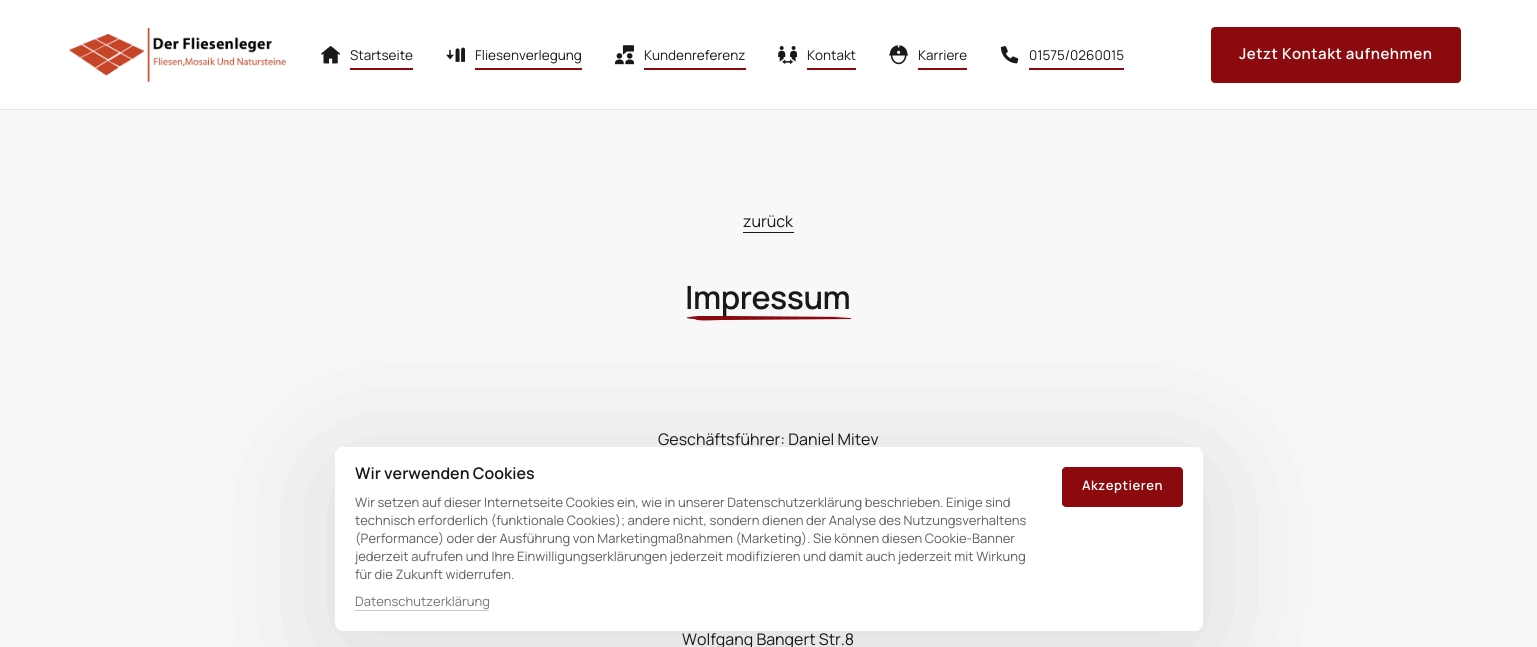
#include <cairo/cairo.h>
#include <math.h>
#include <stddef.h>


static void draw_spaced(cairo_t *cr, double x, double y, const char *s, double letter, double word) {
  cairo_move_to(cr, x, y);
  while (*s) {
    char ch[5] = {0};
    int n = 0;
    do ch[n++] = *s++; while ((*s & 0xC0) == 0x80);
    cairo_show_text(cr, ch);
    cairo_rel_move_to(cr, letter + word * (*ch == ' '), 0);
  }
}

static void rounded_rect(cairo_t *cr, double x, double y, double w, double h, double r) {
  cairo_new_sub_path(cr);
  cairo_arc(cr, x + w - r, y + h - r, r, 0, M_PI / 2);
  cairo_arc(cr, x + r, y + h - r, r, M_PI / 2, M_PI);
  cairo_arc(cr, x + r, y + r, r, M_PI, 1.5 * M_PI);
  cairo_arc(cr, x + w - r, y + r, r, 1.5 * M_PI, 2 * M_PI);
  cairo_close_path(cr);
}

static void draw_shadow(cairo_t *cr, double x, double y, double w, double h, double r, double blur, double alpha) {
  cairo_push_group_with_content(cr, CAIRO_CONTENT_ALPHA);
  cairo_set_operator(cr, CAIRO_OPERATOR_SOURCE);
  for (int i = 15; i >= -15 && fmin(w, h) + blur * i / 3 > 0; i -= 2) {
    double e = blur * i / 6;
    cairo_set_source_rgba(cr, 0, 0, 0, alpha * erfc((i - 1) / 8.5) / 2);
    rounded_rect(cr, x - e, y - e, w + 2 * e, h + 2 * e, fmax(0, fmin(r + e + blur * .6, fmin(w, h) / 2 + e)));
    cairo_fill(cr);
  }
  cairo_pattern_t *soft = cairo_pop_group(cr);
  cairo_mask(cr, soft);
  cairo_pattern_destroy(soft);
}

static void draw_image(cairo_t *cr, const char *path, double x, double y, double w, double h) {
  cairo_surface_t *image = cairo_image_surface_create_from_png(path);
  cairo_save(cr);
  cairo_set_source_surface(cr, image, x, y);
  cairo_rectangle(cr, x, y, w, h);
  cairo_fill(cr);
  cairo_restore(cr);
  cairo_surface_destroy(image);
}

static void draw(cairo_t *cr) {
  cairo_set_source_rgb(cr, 1, 1, 1);
  cairo_paint(cr);
  draw_image(cr, "images/1.png", 69, 28, 217, 54);
  draw_image(cr, "images/2.png", 321, 46, 19, 18);
  cairo_set_source_rgb(cr, 140 / 255.0, 10 / 255.0, 15 / 255.0);
  cairo_rectangle(cr, 350, 68, 63, 2);
  cairo_fill(cr);
  draw_image(cr, "images/3.png", 446, 47, 19, 15);
  cairo_rectangle(cr, 475, 68, 107, 2);
  cairo_fill(cr);
  draw_image(cr, "images/4.png", 615, 45, 19, 20);
  cairo_rectangle(cr, 644, 68, 102, 2);
  cairo_fill(cr);
  draw_image(cr, "images/5.png", 778, 46, 19, 19);
  cairo_rectangle(cr, 807, 68, 49, 2);
  cairo_fill(cr);
  draw_image(cr, "images/6.png", 889, 45, 19, 20);
  cairo_rectangle(cr, 918, 68, 49, 2);
  cairo_fill(cr);
  draw_image(cr, "images/7.png", 1000, 46, 19, 18);
  cairo_rectangle(cr, 1029, 68, 95, 2);
  cairo_fill(cr);
  cairo_set_source_rgb(cr, 140 / 255.0, 10 / 255.0, 14 / 255.0);
  rounded_rect(cr, 1211, 27, 250, 56, 4);
  cairo_fill(cr);
  cairo_set_source_rgb(cr, 228 / 255.0, 228 / 255.0, 228 / 255.0);
  cairo_rectangle(cr, 0, 109, 1537, 1);
  cairo_fill(cr);
  cairo_set_source_rgb(cr, 248 / 255.0, 248 / 255.0, 248 / 255.0);
  cairo_rectangle(cr, 0, 110, 1537, 537);
  cairo_fill(cr);
  cairo_set_source_rgb(cr, 25 / 255.0, 25 / 255.0, 25 / 255.0);
  cairo_rectangle(cr, 743, 232, 51, 1);
  cairo_fill(cr);
  cairo_save(cr);
  cairo_rectangle(cr, 686, 316, 165, 5);
  cairo_clip(cr);
  cairo_set_source_rgb(cr, 140 / 255.0, 10 / 255.0, 15 / 255.0);
  cairo_new_path(cr);
  cairo_move_to(cr, 850, 317);
  cairo_line_to(cr, 834, 318);
  cairo_line_to(cr, 851, 318);
  cairo_curve_to(cr, 853, 319, 850, 319, 850, 319);
  cairo_line_to(cr, 722, 320);
  cairo_curve_to(cr, 714, 320, 705, 321, 697, 320);
  cairo_line_to(cr, 694, 319);
  cairo_curve_to(cr, 692, 319, 682, 318, 689, 317);
  cairo_curve_to(cr, 702, 315, 716, 316, 730, 316);
  cairo_close_path(cr);
  cairo_fill(cr);
  cairo_restore(cr);
  cairo_set_source_rgb(cr, 0, 0, 0);
  draw_shadow(cr, 315, 447, 908, 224, 28, 70, 0.1);
  cairo_set_source_rgb(cr, 1, 1, 1);
  rounded_rect(cr, 335, 447, 868, 184, 8);
  cairo_fill(cr);
  cairo_set_source_rgb(cr, 200 / 255.0, 200 / 255.0, 200 / 255.0);
  cairo_rectangle(cr, 355, 610, 134, 1);
  cairo_fill(cr);
  cairo_set_source_rgb(cr, 140 / 255.0, 10 / 255.0, 14 / 255.0);
  rounded_rect(cr, 1062, 467, 121, 40, 4);
  cairo_fill(cr);
  cairo_select_font_face(cr, "Manrope", CAIRO_FONT_SLANT_NORMAL, CAIRO_FONT_WEIGHT_NORMAL);
  cairo_set_font_size(cr, 13.5);
  cairo_set_source_rgb(cr, 25 / 255.0, 25 / 255.0, 25 / 255.0);
  cairo_move_to(cr, 350, 60);
  cairo_show_text(cr, "Startseite");
  cairo_move_to(cr, 475, 60);
  cairo_show_text(cr, "Fliesenverlegung");
  cairo_move_to(cr, 644, 60);
  cairo_show_text(cr, "Kundenreferenz");
  cairo_move_to(cr, 807, 60);
  cairo_show_text(cr, "Kontakt");
  cairo_move_to(cr, 918, 60);
  cairo_show_text(cr, "Karriere");
  cairo_move_to(cr, 1029, 60);
  cairo_show_text(cr, "01575/0260015");
  cairo_select_font_face(cr, "Manrope SemiBold", CAIRO_FONT_SLANT_NORMAL, CAIRO_FONT_WEIGHT_NORMAL);
  cairo_set_font_size(cr, 15);
  cairo_set_source_rgb(cr, 1, 1, 1);
  draw_spaced(cr, 1239, 59, "Jetzt Kontakt aufnehmen", 0.5, 0);
  cairo_select_font_face(cr, "Manrope", CAIRO_FONT_SLANT_NORMAL, CAIRO_FONT_WEIGHT_NORMAL);
  cairo_set_font_size(cr, 16);
  cairo_set_source_rgb(cr, 25 / 255.0, 25 / 255.0, 25 / 255.0);
  cairo_move_to(cr, 743, 227);
  cairo_show_text(cr, "zurück");
  cairo_select_font_face(cr, "Manrope SemiBold", CAIRO_FONT_SLANT_NORMAL, CAIRO_FONT_WEIGHT_NORMAL);
  cairo_set_font_size(cr, 32);
  draw_spaced(cr, 685, 309, "Impressum", -0.5, 0);
  cairo_select_font_face(cr, "Manrope", CAIRO_FONT_SLANT_NORMAL, CAIRO_FONT_WEIGHT_NORMAL);
  cairo_set_font_size(cr, 16);
  cairo_move_to(cr, 658, 445);
  cairo_show_text(cr, "Geschäftsführer: Daniel Mitev");
  cairo_move_to(cr, 682, 645);
  cairo_show_text(cr, "Wolfgang Bangert Str.8");
  cairo_select_font_face(cr, "Manrope SemiBold", CAIRO_FONT_SLANT_NORMAL, CAIRO_FONT_WEIGHT_NORMAL);
  cairo_move_to(cr, 355, 479);
  cairo_show_text(cr, "Wir verwenden Cookies");
  cairo_select_font_face(cr, "Manrope", CAIRO_FONT_SLANT_NORMAL, CAIRO_FONT_WEIGHT_NORMAL);
  cairo_set_font_size(cr, 13);
  cairo_set_source_rgb(cr, 94 / 255.0, 94 / 255.0, 94 / 255.0);
  cairo_move_to(cr, 355, 507);
  cairo_show_text(cr, "Wir setzen auf dieser Internetseite Cookies ein, wie in unserer Datenschutzerklärung beschrieben. Einige sind");
  cairo_move_to(cr, 355, 525);
  cairo_show_text(cr, "technisch erforderlich (funktionale Cookies); andere nicht, sondern dienen der Analyse des Nutzungsverhaltens");
  cairo_move_to(cr, 355, 543);
  cairo_show_text(cr, "(Performance) oder der Ausführung von Marketingmaßnahmen (Marketing). Sie können diesen Cookie-Banner");
  cairo_move_to(cr, 355, 561);
  cairo_show_text(cr, "jederzeit aufrufen und Ihre Einwilligungserklärungen jederzeit modifizieren und damit auch jederzeit mit Wirkung");
  cairo_move_to(cr, 355, 579);
  cairo_show_text(cr, "für die Zukunft widerrufen.");
  cairo_set_source_rgb(cr, 117 / 255.0, 117 / 255.0, 117 / 255.0);
  cairo_move_to(cr, 355, 606);
  cairo_show_text(cr, "Datenschutzerklärung");
  cairo_select_font_face(cr, "Manrope SemiBold", CAIRO_FONT_SLANT_NORMAL, CAIRO_FONT_WEIGHT_NORMAL);
  cairo_set_source_rgb(cr, 1, 1, 1);
  draw_spaced(cr, 1082, 490, "Akzeptieren", 0.5, 0);
}

int main(void) {
  cairo_surface_t *surface = cairo_image_surface_create(CAIRO_FORMAT_RGB24, 1537, 647);
  cairo_t *cr = cairo_create(surface);
  cairo_font_options_t *options = cairo_font_options_create();
  cairo_font_options_set_hint_metrics(options, CAIRO_HINT_METRICS_OFF);
  cairo_font_options_set_hint_style(options, CAIRO_HINT_STYLE_NONE);
  cairo_set_font_options(cr, options);
  cairo_set_miter_limit(cr, 4);
  draw(cr);
  cairo_surface_write_to_png(surface, "out.png");
  cairo_font_options_destroy(options);
  cairo_destroy(cr);
  cairo_surface_destroy(surface);
  return 0;
}
